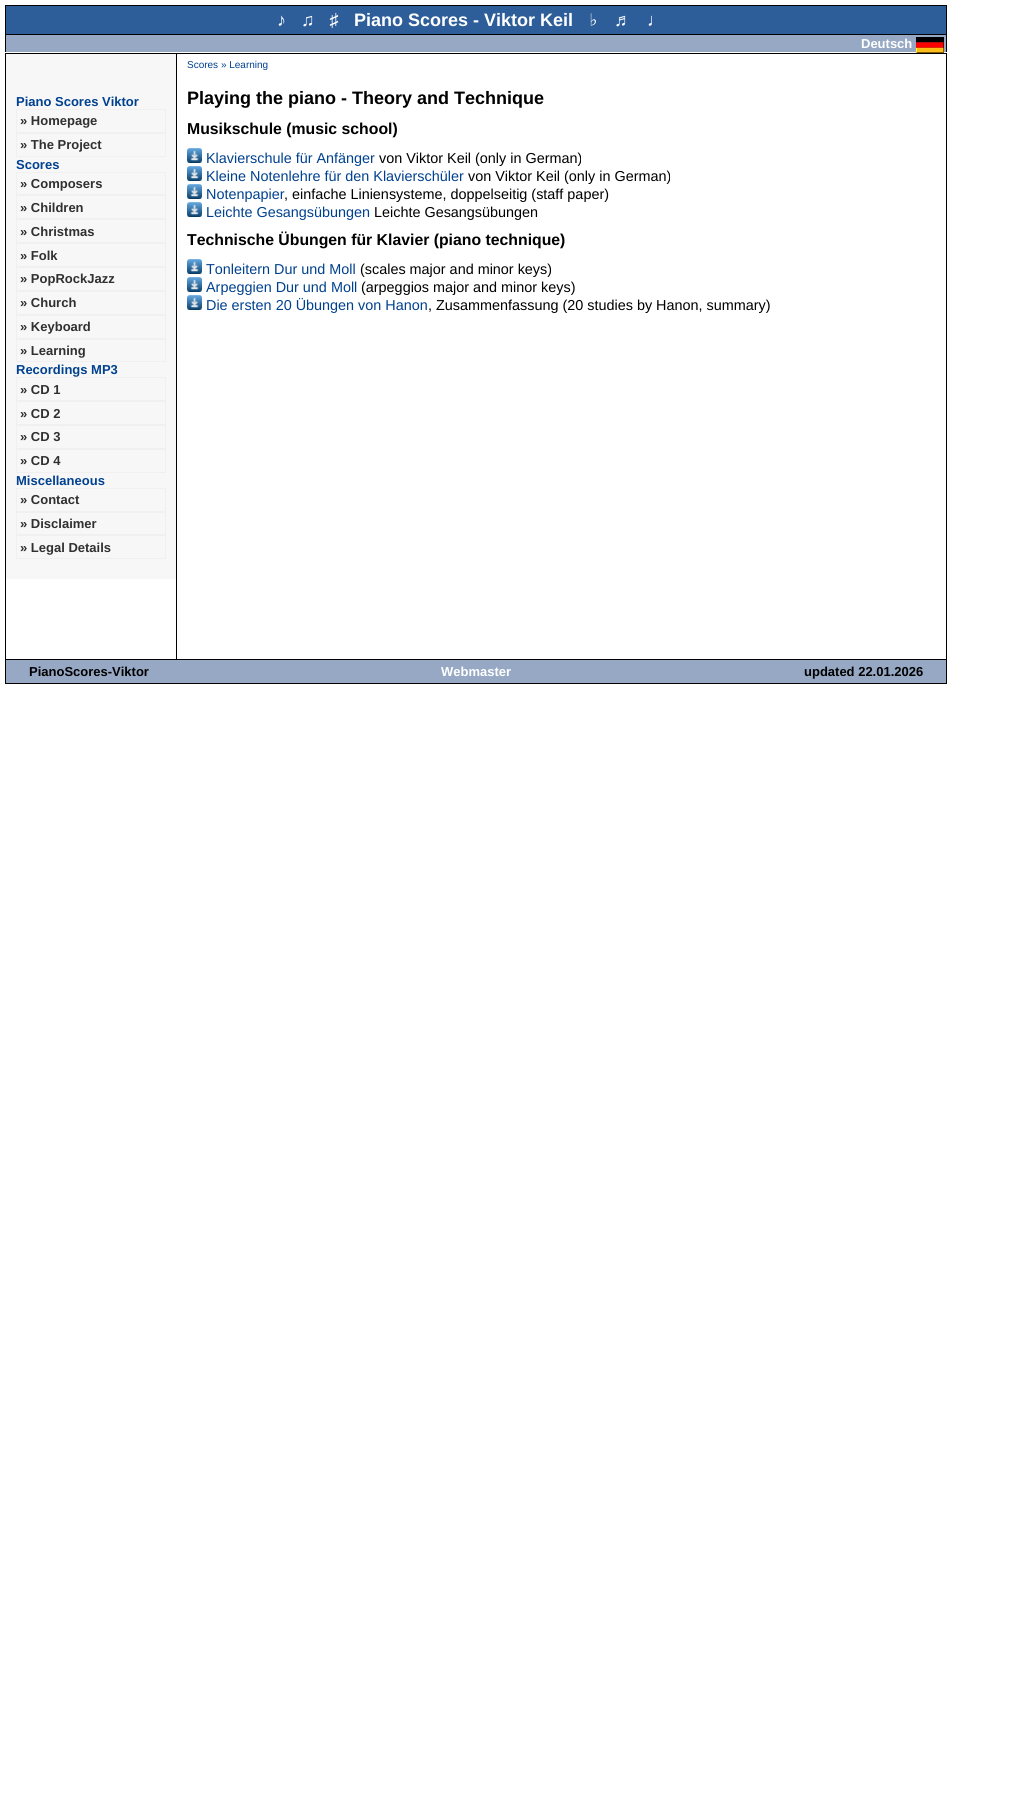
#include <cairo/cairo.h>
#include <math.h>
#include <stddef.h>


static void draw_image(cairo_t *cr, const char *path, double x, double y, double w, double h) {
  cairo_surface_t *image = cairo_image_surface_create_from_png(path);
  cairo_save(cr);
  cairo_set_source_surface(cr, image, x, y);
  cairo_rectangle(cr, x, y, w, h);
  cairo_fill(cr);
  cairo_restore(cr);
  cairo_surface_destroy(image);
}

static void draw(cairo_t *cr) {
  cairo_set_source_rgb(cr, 1, 1, 1);
  cairo_paint(cr);
  cairo_set_source_rgb(cr, 45 / 255.0, 94 / 255.0, 154 / 255.0);
  cairo_rectangle(cr, 5.5, 5.5, 941, 29);
  cairo_fill_preserve(cr);
  cairo_set_source_rgb(cr, 0, 0, 0);
  cairo_set_line_width(cr, 1);
  cairo_stroke(cr);
  cairo_set_source_rgb(cr, 150 / 255.0, 168 / 255.0, 196 / 255.0);
  cairo_rectangle(cr, 6, 35, 940, 17);
  cairo_fill(cr);
  cairo_set_source_rgb(cr, 0, 0, 0);
  cairo_rectangle(cr, 946, 35, 1, 17);
  cairo_fill(cr);
  cairo_rectangle(cr, 5, 35, 1, 17);
  cairo_fill(cr);
  draw_image(cr, "images/1.png", 916, 37, 28, 16);
  cairo_rectangle(cr, 5.5, 53.5, 941, 606);
  cairo_stroke(cr);
  cairo_set_source_rgb(cr, 247 / 255.0, 247 / 255.0, 247 / 255.0);
  cairo_rectangle(cr, 6, 54, 170, 525);
  cairo_fill(cr);
  cairo_rectangle(cr, 16.5, 109.5, 149, 23);
  cairo_set_source_rgb(cr, 240 / 255.0, 240 / 255.0, 240 / 255.0);
  cairo_stroke(cr);
  cairo_rectangle(cr, 16.5, 133.5, 149, 23);
  cairo_stroke(cr);
  cairo_rectangle(cr, 16.5, 172.5, 149, 22);
  cairo_stroke(cr);
  cairo_rectangle(cr, 16.5, 195.5, 149, 23);
  cairo_stroke(cr);
  cairo_rectangle(cr, 16.5, 219.5, 149, 23);
  cairo_stroke(cr);
  cairo_rectangle(cr, 16.5, 243.5, 149, 23);
  cairo_stroke(cr);
  cairo_rectangle(cr, 16.5, 267.5, 149, 23);
  cairo_stroke(cr);
  cairo_rectangle(cr, 16.5, 291.5, 149, 23);
  cairo_stroke(cr);
  cairo_rectangle(cr, 16.5, 315.5, 149, 23);
  cairo_stroke(cr);
  cairo_rectangle(cr, 16.5, 339.5, 149, 22);
  cairo_stroke(cr);
  cairo_rectangle(cr, 16.5, 377.5, 149, 23);
  cairo_stroke(cr);
  cairo_rectangle(cr, 16.5, 401.5, 149, 23);
  cairo_stroke(cr);
  cairo_rectangle(cr, 16.5, 425.5, 149, 23);
  cairo_stroke(cr);
  cairo_rectangle(cr, 16.5, 449.5, 149, 23);
  cairo_stroke(cr);
  cairo_rectangle(cr, 16.5, 488.5, 149, 23);
  cairo_stroke(cr);
  cairo_rectangle(cr, 16.5, 512.5, 149, 22);
  cairo_stroke(cr);
  cairo_rectangle(cr, 16.5, 535.5, 149, 23);
  cairo_stroke(cr);
  cairo_set_source_rgb(cr, 0, 0, 0);
  cairo_rectangle(cr, 176, 54, 1, 605);
  cairo_fill(cr);
  draw_image(cr, "images/2.png", 187, 148, 15, 15);
  draw_image(cr, "images/2.png", 187, 166, 15, 15);
  draw_image(cr, "images/2.png", 187, 184, 15, 15);
  draw_image(cr, "images/2.png", 187, 202, 15, 15);
  draw_image(cr, "images/2.png", 187, 259, 15, 15);
  draw_image(cr, "images/2.png", 187, 277, 15, 15);
  draw_image(cr, "images/2.png", 187, 295, 15, 15);
  cairo_set_source_rgb(cr, 150 / 255.0, 168 / 255.0, 196 / 255.0);
  cairo_rectangle(cr, 6, 660, 940, 23);
  cairo_fill(cr);
  cairo_set_source_rgb(cr, 0, 0, 0);
  cairo_rectangle(cr, 946, 660, 1, 24);
  cairo_fill(cr);
  cairo_rectangle(cr, 5, 683, 942, 1);
  cairo_fill(cr);
  cairo_rectangle(cr, 5, 660, 1, 24);
  cairo_fill(cr);
  cairo_select_font_face(cr, "Liberation Sans", CAIRO_FONT_SLANT_NORMAL, CAIRO_FONT_WEIGHT_BOLD);
  cairo_set_font_size(cr, 18);
  cairo_set_source_rgb(cr, 1, 1, 1);
  cairo_move_to(cr, 277, 26);
  cairo_show_text(cr, "♪   ♫   ♯");
  cairo_move_to(cr, 354, 26);
  cairo_show_text(cr, "Piano Scores - Viktor Keil");
  cairo_select_font_face(cr, "DejaVu Sans Mono", CAIRO_FONT_SLANT_NORMAL, CAIRO_FONT_WEIGHT_BOLD);
  cairo_move_to(cr, 588, 26);
  cairo_show_text(cr, "♭");
  cairo_select_font_face(cr, "Liberation Sans", CAIRO_FONT_SLANT_NORMAL, CAIRO_FONT_WEIGHT_BOLD);
  cairo_move_to(cr, 614, 26);
  cairo_show_text(cr, "♬   ♩");
  cairo_set_font_size(cr, 13);
  cairo_move_to(cr, 861, 48);
  cairo_show_text(cr, "Deutsch");
  cairo_set_source_rgb(cr, 0, 65 / 255.0, 143 / 255.0);
  cairo_move_to(cr, 16, 106);
  cairo_show_text(cr, "Piano Scores Viktor");
  cairo_set_source_rgb(cr, 48 / 255.0, 48 / 255.0, 48 / 255.0);
  cairo_move_to(cr, 20, 125);
  cairo_show_text(cr, "» Homepage");
  cairo_move_to(cr, 20, 149);
  cairo_show_text(cr, "» The Project");
  cairo_set_source_rgb(cr, 0, 65 / 255.0, 143 / 255.0);
  cairo_move_to(cr, 16, 169);
  cairo_show_text(cr, "Scores");
  cairo_set_source_rgb(cr, 48 / 255.0, 48 / 255.0, 48 / 255.0);
  cairo_move_to(cr, 20, 188);
  cairo_show_text(cr, "» Composers");
  cairo_move_to(cr, 20, 212);
  cairo_show_text(cr, "» Children");
  cairo_move_to(cr, 20, 236);
  cairo_show_text(cr, "» Christmas");
  cairo_move_to(cr, 20, 260);
  cairo_show_text(cr, "» Folk");
  cairo_move_to(cr, 20, 283);
  cairo_show_text(cr, "» PopRockJazz");
  cairo_move_to(cr, 20, 307);
  cairo_show_text(cr, "» Church");
  cairo_move_to(cr, 20, 331);
  cairo_show_text(cr, "» Keyboard");
  cairo_move_to(cr, 20, 355);
  cairo_show_text(cr, "» Learning");
  cairo_set_source_rgb(cr, 0, 65 / 255.0, 143 / 255.0);
  cairo_move_to(cr, 16, 374);
  cairo_show_text(cr, "Recordings MP3");
  cairo_set_source_rgb(cr, 48 / 255.0, 48 / 255.0, 48 / 255.0);
  cairo_move_to(cr, 20, 394);
  cairo_show_text(cr, "» CD 1");
  cairo_move_to(cr, 20, 418);
  cairo_show_text(cr, "» CD 2");
  cairo_move_to(cr, 20, 441);
  cairo_show_text(cr, "» CD 3");
  cairo_move_to(cr, 20, 465);
  cairo_show_text(cr, "» CD 4");
  cairo_set_source_rgb(cr, 0, 65 / 255.0, 143 / 255.0);
  cairo_move_to(cr, 16, 485);
  cairo_show_text(cr, "Miscellaneous");
  cairo_set_source_rgb(cr, 48 / 255.0, 48 / 255.0, 48 / 255.0);
  cairo_move_to(cr, 20, 504);
  cairo_show_text(cr, "» Contact");
  cairo_move_to(cr, 20, 528);
  cairo_show_text(cr, "» Disclaimer");
  cairo_move_to(cr, 20, 552);
  cairo_show_text(cr, "» Legal Details");
  cairo_select_font_face(cr, "Liberation Sans", CAIRO_FONT_SLANT_NORMAL, CAIRO_FONT_WEIGHT_NORMAL);
  cairo_set_font_size(cr, 10);
  cairo_set_source_rgb(cr, 0, 65 / 255.0, 143 / 255.0);
  cairo_move_to(cr, 187, 68);
  cairo_show_text(cr, "Scores » Learning");
  cairo_select_font_face(cr, "Liberation Sans", CAIRO_FONT_SLANT_NORMAL, CAIRO_FONT_WEIGHT_BOLD);
  cairo_set_font_size(cr, 18);
  cairo_set_source_rgb(cr, 0, 0, 0);
  cairo_move_to(cr, 187, 104);
  cairo_show_text(cr, "Playing the piano - Theory and Technique");
  cairo_set_font_size(cr, 15.8);
  cairo_move_to(cr, 187, 134);
  cairo_show_text(cr, "Musikschule (music school)");
  cairo_select_font_face(cr, "Liberation Sans", CAIRO_FONT_SLANT_NORMAL, CAIRO_FONT_WEIGHT_NORMAL);
  cairo_set_font_size(cr, 14.4);
  cairo_set_source_rgb(cr, 0, 65 / 255.0, 143 / 255.0);
  cairo_move_to(cr, 206, 163);
  cairo_show_text(cr, "Klavierschule für Anfänger");
  cairo_set_source_rgb(cr, 0, 0, 0);
  cairo_move_to(cr, 379, 163);
  cairo_show_text(cr, "von Viktor Keil (only in German)");
  cairo_set_source_rgb(cr, 0, 65 / 255.0, 143 / 255.0);
  cairo_move_to(cr, 206, 181);
  cairo_show_text(cr, "Kleine Notenlehre für den Klavierschüler");
  cairo_set_source_rgb(cr, 0, 0, 0);
  cairo_move_to(cr, 468, 181);
  cairo_show_text(cr, "von Viktor Keil (only in German)");
  cairo_set_source_rgb(cr, 0, 65 / 255.0, 143 / 255.0);
  cairo_move_to(cr, 206, 199);
  cairo_show_text(cr, "Notenpapier");
  cairo_set_source_rgb(cr, 0, 0, 0);
  cairo_move_to(cr, 284, 199);
  cairo_show_text(cr, ", einfache Liniensysteme, doppelseitig (staff paper)");
  cairo_set_source_rgb(cr, 0, 65 / 255.0, 143 / 255.0);
  cairo_move_to(cr, 206, 217);
  cairo_show_text(cr, "Leichte Gesangsübungen");
  cairo_set_source_rgb(cr, 0, 0, 0);
  cairo_move_to(cr, 374, 217);
  cairo_show_text(cr, "Leichte Gesangsübungen");
  cairo_select_font_face(cr, "Liberation Sans", CAIRO_FONT_SLANT_NORMAL, CAIRO_FONT_WEIGHT_BOLD);
  cairo_set_font_size(cr, 15.8);
  cairo_move_to(cr, 187, 245);
  cairo_show_text(cr, "Technische Übungen für Klavier (piano technique)");
  cairo_select_font_face(cr, "Liberation Sans", CAIRO_FONT_SLANT_NORMAL, CAIRO_FONT_WEIGHT_NORMAL);
  cairo_set_font_size(cr, 14.4);
  cairo_set_source_rgb(cr, 0, 65 / 255.0, 143 / 255.0);
  cairo_move_to(cr, 206, 274);
  cairo_show_text(cr, "Tonleitern Dur und Moll");
  cairo_set_source_rgb(cr, 0, 0, 0);
  cairo_move_to(cr, 360, 274);
  cairo_show_text(cr, "(scales major and minor keys)");
  cairo_set_source_rgb(cr, 0, 65 / 255.0, 143 / 255.0);
  cairo_move_to(cr, 206, 292);
  cairo_show_text(cr, "Arpeggien Dur und Moll");
  cairo_set_source_rgb(cr, 0, 0, 0);
  cairo_move_to(cr, 361, 292);
  cairo_show_text(cr, "(arpeggios major and minor keys)");
  cairo_set_source_rgb(cr, 0, 65 / 255.0, 143 / 255.0);
  cairo_move_to(cr, 206, 310);
  cairo_show_text(cr, "Die ersten 20 Übungen von Hanon");
  cairo_set_source_rgb(cr, 0, 0, 0);
  cairo_move_to(cr, 428, 310);
  cairo_show_text(cr, ", Zusammenfassung (20 studies by Hanon, summary)");
  cairo_select_font_face(cr, "Liberation Sans", CAIRO_FONT_SLANT_NORMAL, CAIRO_FONT_WEIGHT_BOLD);
  cairo_set_font_size(cr, 13);
  cairo_move_to(cr, 29, 676);
  cairo_show_text(cr, "PianoScores-Viktor");
  cairo_set_source_rgb(cr, 1, 1, 1);
  cairo_move_to(cr, 441, 676);
  cairo_show_text(cr, "Webmaster");
  cairo_set_source_rgb(cr, 0, 0, 0);
  cairo_move_to(cr, 804, 676);
  cairo_show_text(cr, "updated 22.01.2026");
}

int main(void) {
  cairo_surface_t *surface = cairo_image_surface_create(CAIRO_FORMAT_RGB24, 1015, 1817);
  cairo_t *cr = cairo_create(surface);
  cairo_font_options_t *options = cairo_font_options_create();
  cairo_font_options_set_hint_metrics(options, CAIRO_HINT_METRICS_OFF);
  cairo_font_options_set_hint_style(options, CAIRO_HINT_STYLE_NONE);
  cairo_set_font_options(cr, options);
  cairo_set_miter_limit(cr, 4);
  draw(cr);
  cairo_surface_write_to_png(surface, "out.png");
  cairo_font_options_destroy(options);
  cairo_destroy(cr);
  cairo_surface_destroy(surface);
  return 0;
}
